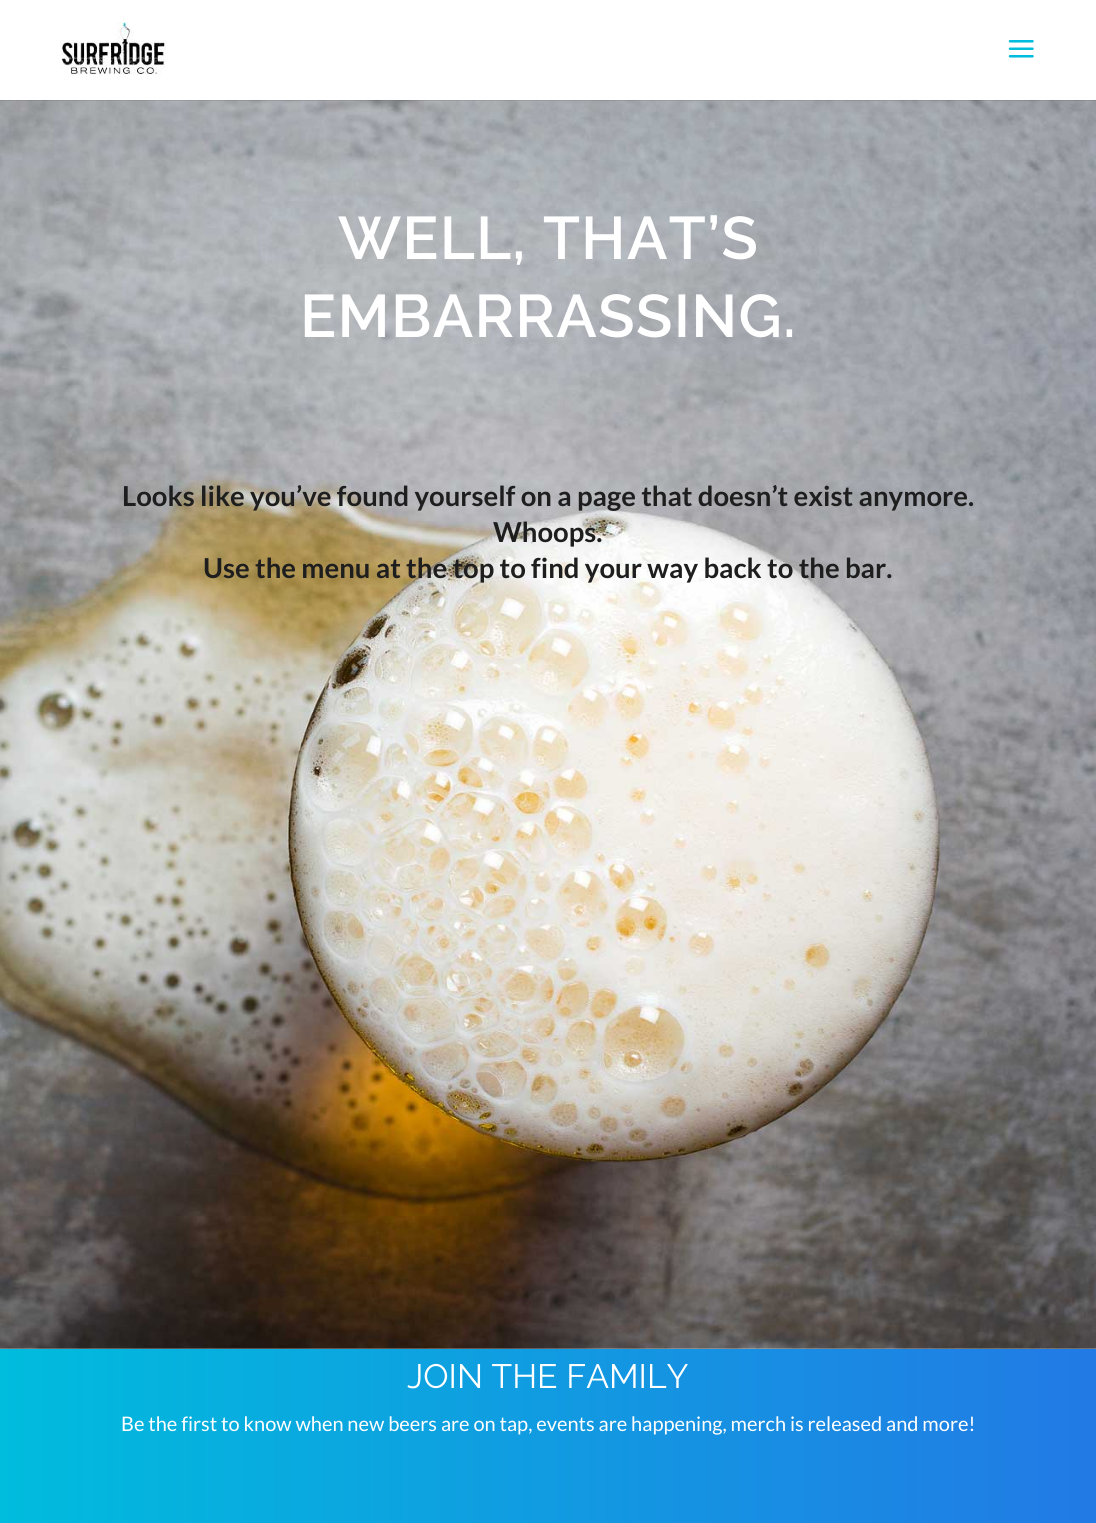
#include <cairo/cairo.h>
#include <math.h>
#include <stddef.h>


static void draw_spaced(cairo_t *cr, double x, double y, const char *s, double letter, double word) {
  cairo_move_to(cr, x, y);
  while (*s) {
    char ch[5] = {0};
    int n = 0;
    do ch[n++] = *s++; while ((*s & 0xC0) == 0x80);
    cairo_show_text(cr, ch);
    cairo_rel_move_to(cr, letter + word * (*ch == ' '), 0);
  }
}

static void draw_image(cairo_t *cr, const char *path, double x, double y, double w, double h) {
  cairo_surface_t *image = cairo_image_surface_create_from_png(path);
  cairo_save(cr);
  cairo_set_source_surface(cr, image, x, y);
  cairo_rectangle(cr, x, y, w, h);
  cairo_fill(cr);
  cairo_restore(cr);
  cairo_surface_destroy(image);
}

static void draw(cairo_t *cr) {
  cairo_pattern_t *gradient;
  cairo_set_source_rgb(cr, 1, 1, 1);
  cairo_paint(cr);
  draw_image(cr, "images/3.png", 0, 100, 1096, 1249);
  cairo_set_source_rgba(cr, 0, 0, 0, 0.1);
  cairo_rectangle(cr, 0, 100, 1096, 1);
  cairo_fill(cr);
  draw_image(cr, "images/1.png", 60, 22, 106, 53);
  draw_image(cr, "images/2.png", 1008, 40, 26, 18);
  gradient = cairo_pattern_create_linear(0, 1473, 1096, 1473);
  cairo_pattern_add_color_stop_rgba(gradient, 0, 0, 188 / 255.0, 221 / 255.0, 1);
  cairo_pattern_add_color_stop_rgba(gradient, 1, 34 / 255.0, 122 / 255.0, 229 / 255.0, 1);
  cairo_set_source(cr, gradient);
  cairo_pattern_destroy(gradient);
  cairo_rectangle(cr, 0, 1349, 1096, 174);
  cairo_fill(cr);
  cairo_select_font_face(cr, "Raleway Thin", CAIRO_FONT_SLANT_NORMAL, CAIRO_FONT_WEIGHT_NORMAL);
  cairo_set_font_size(cr, 60);
  cairo_set_source_rgb(cr, 1, 1, 1);
  draw_spaced(cr, 338, 259, "WELL, THAT’S", 1.25, 0);
  draw_spaced(cr, 300, 337, "EMBARRASSING.", 1.25, 0);
  cairo_select_font_face(cr, "Lato", CAIRO_FONT_SLANT_NORMAL, CAIRO_FONT_WEIGHT_BOLD);
  cairo_set_font_size(cr, 27.5);
  cairo_set_source_rgb(cr, 30 / 255.0, 30 / 255.0, 30 / 255.0);
  cairo_move_to(cr, 122, 506);
  cairo_show_text(cr, "Looks like you’ve found yourself on a page that doesn’t exist anymore.");
  cairo_move_to(cr, 493, 542);
  cairo_show_text(cr, "Whoops.");
  cairo_move_to(cr, 203, 578);
  cairo_show_text(cr, "Use the menu at the top to find your way back to the bar.");
  cairo_select_font_face(cr, "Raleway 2 Thin", CAIRO_FONT_SLANT_NORMAL, CAIRO_FONT_WEIGHT_NORMAL);
  cairo_set_font_size(cr, 33.75);
  cairo_set_source_rgb(cr, 1, 1, 1);
  cairo_move_to(cr, 407, 1388);
  cairo_show_text(cr, "JOIN THE FAMILY");
  cairo_select_font_face(cr, "Lato", CAIRO_FONT_SLANT_NORMAL, CAIRO_FONT_WEIGHT_NORMAL);
  cairo_set_font_size(cr, 20);
  cairo_move_to(cr, 121, 1431);
  cairo_show_text(cr, "Be the first to know when new beers are on tap, events are happening, merch is released and more!");
}

int main(void) {
  cairo_surface_t *surface = cairo_image_surface_create(CAIRO_FORMAT_RGB24, 1096, 1523);
  cairo_t *cr = cairo_create(surface);
  cairo_font_options_t *options = cairo_font_options_create();
  cairo_font_options_set_hint_metrics(options, CAIRO_HINT_METRICS_OFF);
  cairo_font_options_set_hint_style(options, CAIRO_HINT_STYLE_NONE);
  cairo_set_font_options(cr, options);
  cairo_set_miter_limit(cr, 4);
  draw(cr);
  cairo_surface_write_to_png(surface, "out.png");
  cairo_font_options_destroy(options);
  cairo_destroy(cr);
  cairo_surface_destroy(surface);
  return 0;
}
